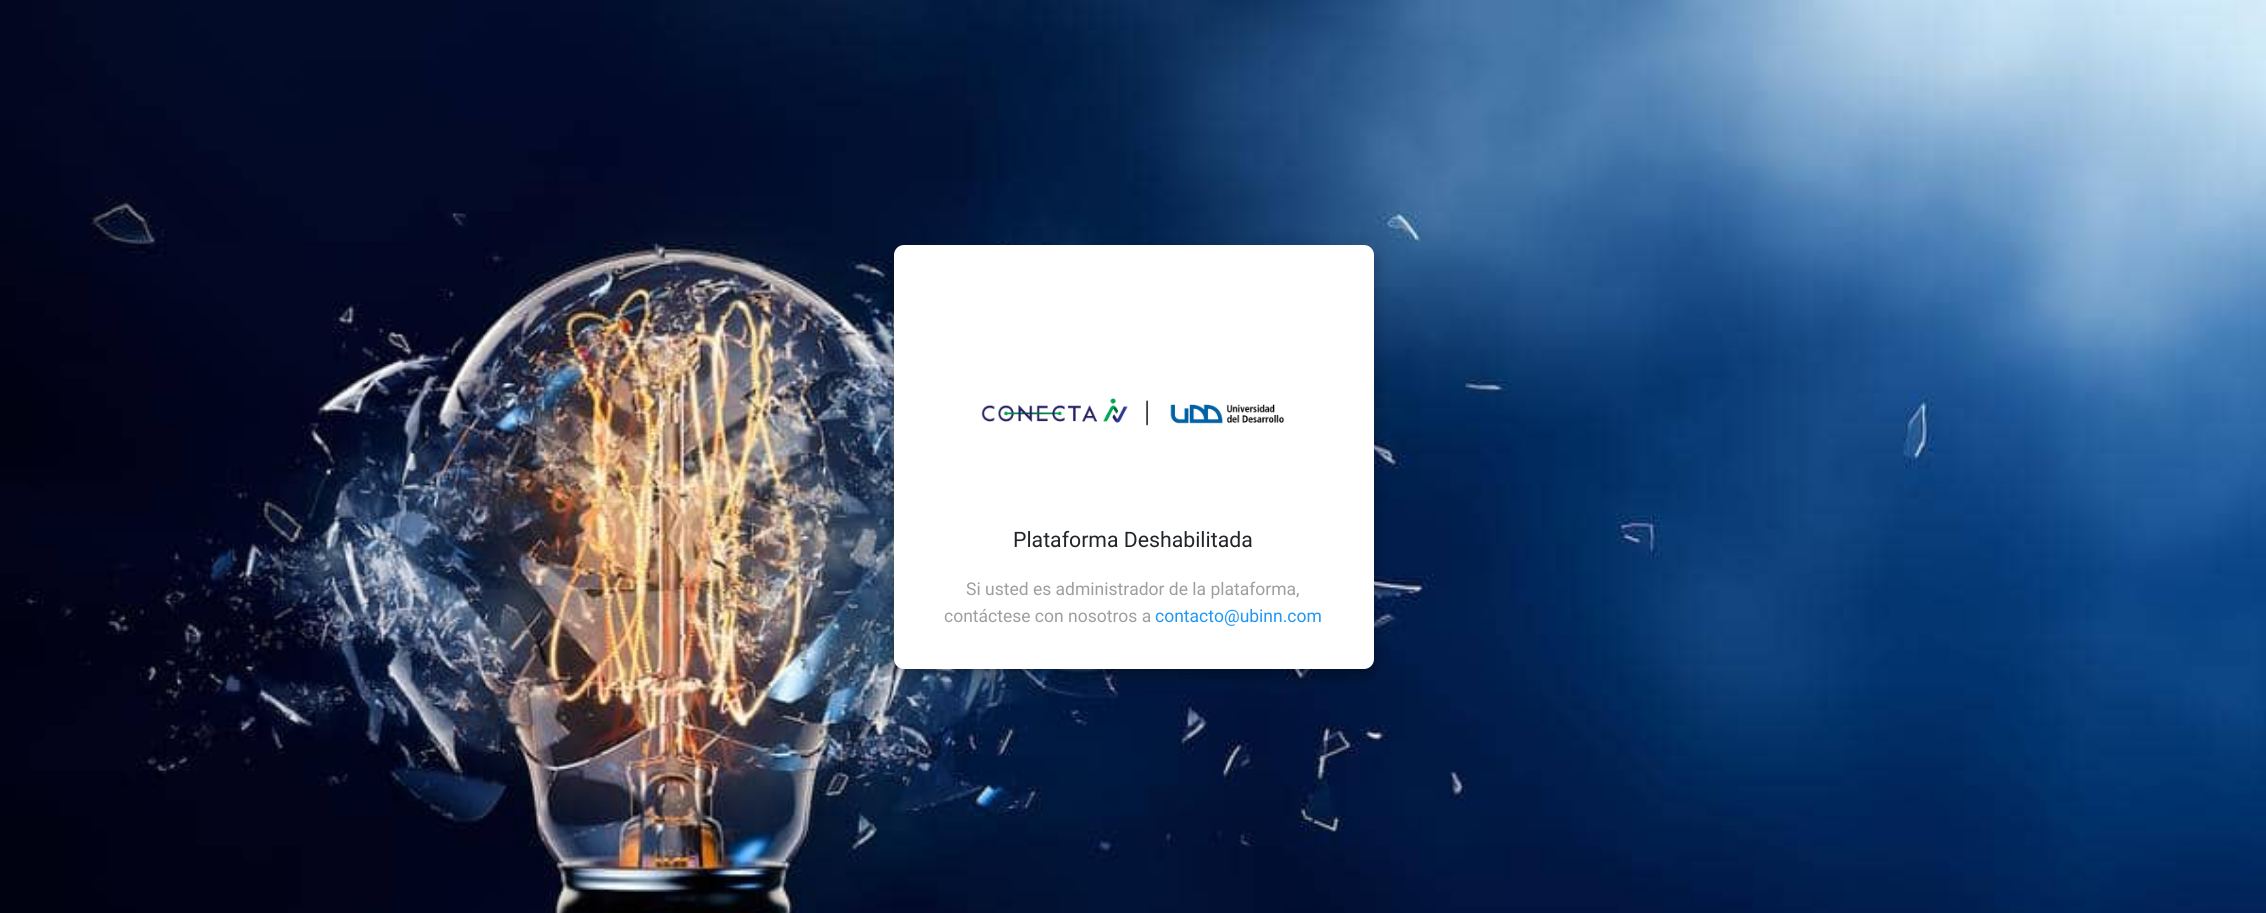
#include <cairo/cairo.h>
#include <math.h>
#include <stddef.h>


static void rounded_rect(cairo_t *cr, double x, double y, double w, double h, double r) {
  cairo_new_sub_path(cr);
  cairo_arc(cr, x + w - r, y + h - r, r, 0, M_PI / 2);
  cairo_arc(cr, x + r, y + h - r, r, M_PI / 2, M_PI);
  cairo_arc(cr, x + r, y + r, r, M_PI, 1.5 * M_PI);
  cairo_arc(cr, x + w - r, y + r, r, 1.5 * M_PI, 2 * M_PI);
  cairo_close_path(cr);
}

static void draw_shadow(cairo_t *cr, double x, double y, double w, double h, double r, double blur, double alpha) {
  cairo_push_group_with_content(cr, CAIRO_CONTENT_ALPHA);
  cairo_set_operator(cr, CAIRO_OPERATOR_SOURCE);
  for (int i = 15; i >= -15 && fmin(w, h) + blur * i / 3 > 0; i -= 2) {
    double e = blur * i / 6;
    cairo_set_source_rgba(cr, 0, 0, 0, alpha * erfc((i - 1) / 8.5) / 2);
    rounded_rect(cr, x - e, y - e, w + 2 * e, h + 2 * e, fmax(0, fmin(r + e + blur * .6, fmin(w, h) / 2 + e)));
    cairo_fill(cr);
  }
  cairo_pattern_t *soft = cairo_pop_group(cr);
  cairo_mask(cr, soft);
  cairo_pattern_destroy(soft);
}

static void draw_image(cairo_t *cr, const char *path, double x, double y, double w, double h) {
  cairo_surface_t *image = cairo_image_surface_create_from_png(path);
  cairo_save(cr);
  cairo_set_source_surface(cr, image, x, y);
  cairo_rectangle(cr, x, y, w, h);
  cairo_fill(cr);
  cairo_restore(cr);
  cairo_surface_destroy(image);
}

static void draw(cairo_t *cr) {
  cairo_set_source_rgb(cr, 1, 1, 1);
  cairo_paint(cr);
  draw_image(cr, "images/1.png", 0, 0, 2266, 913);
  cairo_set_source_rgb(cr, 0, 0, 0);
  draw_shadow(cr, 891, 246, 485, 429, 13, 9, 0.12);
  draw_shadow(cr, 893, 254, 482, 426, 11, 6, 0.14);
  draw_shadow(cr, 898, 255, 472, 416, 6, 3, 0.2);
  cairo_set_source_rgb(cr, 1, 1, 1);
  rounded_rect(cr, 894, 245, 480, 424, 10);
  cairo_fill(cr);
  draw_image(cr, "images/2.png", 981, 398, 303, 28);
  cairo_select_font_face(cr, "Roboto", CAIRO_FONT_SLANT_NORMAL, CAIRO_FONT_WEIGHT_NORMAL);
  cairo_set_font_size(cr, 21.25);
  cairo_set_source_rgb(cr, 33 / 255.0, 37 / 255.0, 41 / 255.0);
  cairo_move_to(cr, 1013, 547);
  cairo_show_text(cr, "Plataforma Deshabilitada");
  cairo_set_font_size(cr, 17.5);
  cairo_set_source_rgb(cr, 158 / 255.0, 158 / 255.0, 158 / 255.0);
  cairo_move_to(cr, 966, 595);
  cairo_show_text(cr, "Si usted es administrador de la plataforma,");
  cairo_move_to(cr, 944, 622);
  cairo_show_text(cr, "contáctese con nosotros a");
  cairo_set_source_rgb(cr, 33 / 255.0, 150 / 255.0, 243 / 255.0);
  cairo_move_to(cr, 1155, 622);
  cairo_show_text(cr, "contacto@ubinn.com");
}

int main(void) {
  cairo_surface_t *surface = cairo_image_surface_create(CAIRO_FORMAT_RGB24, 2266, 913);
  cairo_t *cr = cairo_create(surface);
  cairo_font_options_t *options = cairo_font_options_create();
  cairo_font_options_set_hint_metrics(options, CAIRO_HINT_METRICS_OFF);
  cairo_font_options_set_hint_style(options, CAIRO_HINT_STYLE_NONE);
  cairo_set_font_options(cr, options);
  cairo_set_miter_limit(cr, 4);
  draw(cr);
  cairo_surface_write_to_png(surface, "out.png");
  cairo_font_options_destroy(options);
  cairo_destroy(cr);
  cairo_surface_destroy(surface);
  return 0;
}
